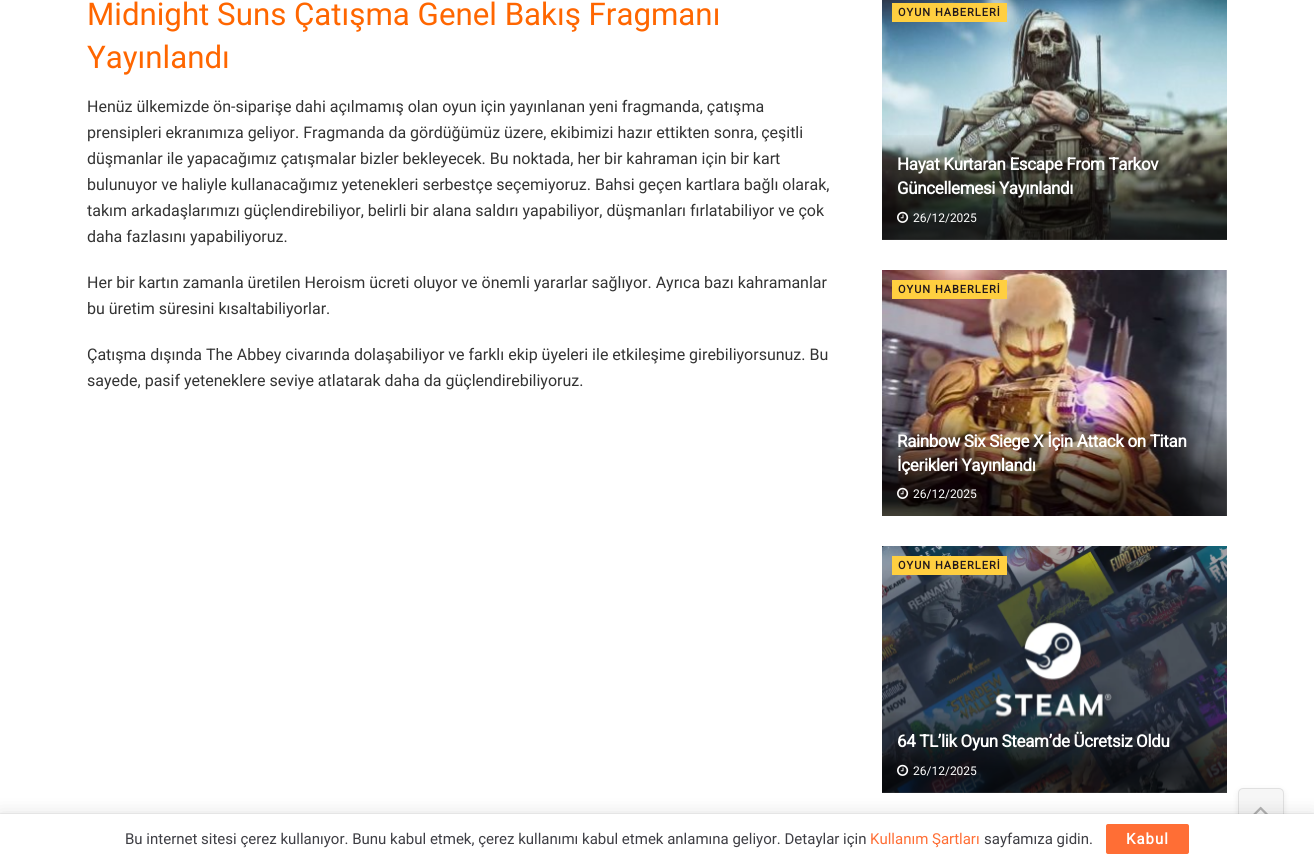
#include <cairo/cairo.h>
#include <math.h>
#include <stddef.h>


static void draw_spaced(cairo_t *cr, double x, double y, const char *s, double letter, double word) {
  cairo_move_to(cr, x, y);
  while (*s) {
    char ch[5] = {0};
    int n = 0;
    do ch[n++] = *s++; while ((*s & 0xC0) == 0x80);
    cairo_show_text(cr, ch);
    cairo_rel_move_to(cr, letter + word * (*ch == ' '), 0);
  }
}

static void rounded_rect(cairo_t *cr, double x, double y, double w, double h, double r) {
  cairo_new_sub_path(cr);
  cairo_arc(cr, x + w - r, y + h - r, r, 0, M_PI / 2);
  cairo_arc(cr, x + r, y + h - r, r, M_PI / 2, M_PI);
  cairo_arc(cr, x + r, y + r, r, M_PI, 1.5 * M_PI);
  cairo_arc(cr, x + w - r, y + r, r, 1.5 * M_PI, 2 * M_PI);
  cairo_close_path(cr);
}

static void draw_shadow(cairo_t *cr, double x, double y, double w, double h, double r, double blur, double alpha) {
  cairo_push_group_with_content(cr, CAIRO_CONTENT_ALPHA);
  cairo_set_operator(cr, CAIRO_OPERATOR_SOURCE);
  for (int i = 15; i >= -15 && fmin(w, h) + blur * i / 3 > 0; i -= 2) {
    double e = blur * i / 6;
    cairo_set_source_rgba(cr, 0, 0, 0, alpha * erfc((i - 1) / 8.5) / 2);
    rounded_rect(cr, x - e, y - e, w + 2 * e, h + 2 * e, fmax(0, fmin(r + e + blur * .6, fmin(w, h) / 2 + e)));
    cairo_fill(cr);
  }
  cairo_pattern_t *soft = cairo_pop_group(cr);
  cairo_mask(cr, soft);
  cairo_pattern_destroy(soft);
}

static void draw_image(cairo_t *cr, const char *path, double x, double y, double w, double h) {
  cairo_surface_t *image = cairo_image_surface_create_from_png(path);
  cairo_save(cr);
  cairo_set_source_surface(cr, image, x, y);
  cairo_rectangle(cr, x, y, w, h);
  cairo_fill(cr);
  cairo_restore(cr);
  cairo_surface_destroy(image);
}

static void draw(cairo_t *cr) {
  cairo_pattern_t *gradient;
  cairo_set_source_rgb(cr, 1, 1, 1);
  cairo_paint(cr);
  draw_image(cr, "images/1.png", 882, 0, 345, 240);
  cairo_set_source_rgb(cr, 1, 207 / 255.0, 64 / 255.0);
  cairo_rectangle(cr, 892, 3, 115, 19);
  cairo_fill(cr);
  gradient = cairo_pattern_create_linear(1055, 133, 1055, 240);
  cairo_pattern_add_color_stop_rgba(gradient, 0, 0, 0, 0, 0);
  cairo_pattern_add_color_stop_rgba(gradient, 0.7, 0, 0, 0, 0.65);
  cairo_set_source(cr, gradient);
  cairo_pattern_destroy(gradient);
  cairo_rectangle(cr, 882, 135, 345, 105);
  cairo_fill(cr);
  draw_image(cr, "images/2.png", 897, 211, 12, 12);
  draw_image(cr, "images/3.png", 882, 270, 345, 246);
  cairo_set_source_rgb(cr, 1, 207 / 255.0, 64 / 255.0);
  cairo_rectangle(cr, 892, 280, 115, 19);
  cairo_fill(cr);
  gradient = cairo_pattern_create_linear(1055, 410, 1055, 516);
  cairo_pattern_add_color_stop_rgba(gradient, 0, 0, 0, 0, 0);
  cairo_pattern_add_color_stop_rgba(gradient, 0.7, 0, 0, 0, 0.65);
  cairo_set_source(cr, gradient);
  cairo_pattern_destroy(gradient);
  cairo_rectangle(cr, 882, 412, 345, 104);
  cairo_fill(cr);
  draw_image(cr, "images/4.png", 897, 487, 12, 12);
  draw_image(cr, "images/5.png", 882, 546, 345, 247);
  cairo_set_source_rgb(cr, 1, 207 / 255.0, 64 / 255.0);
  cairo_rectangle(cr, 892, 556, 115, 19);
  cairo_fill(cr);
  gradient = cairo_pattern_create_linear(1055, 710, 1055, 793);
  cairo_pattern_add_color_stop_rgba(gradient, 0, 0, 0, 0, 0);
  cairo_pattern_add_color_stop_rgba(gradient, 0.7, 0, 0, 0, 0.65);
  cairo_set_source(cr, gradient);
  cairo_pattern_destroy(gradient);
  cairo_rectangle(cr, 882, 712, 345, 81);
  cairo_fill(cr);
  draw_image(cr, "images/6.png", 897, 764, 12, 12);
  cairo_save(cr);
  cairo_set_fill_rule(cr, CAIRO_FILL_RULE_EVEN_ODD);
  cairo_new_path(cr);
  cairo_move_to(cr, 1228, 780);
  cairo_line_to(cr, 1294, 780);
  cairo_line_to(cr, 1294, 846);
  cairo_line_to(cr, 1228, 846);
  cairo_close_path(cr);
  cairo_move_to(cr, 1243, 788);
  cairo_line_to(cr, 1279, 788);
  cairo_curve_to(cr, 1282, 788, 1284, 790, 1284, 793);
  cairo_line_to(cr, 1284, 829);
  cairo_curve_to(cr, 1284, 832, 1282, 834, 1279, 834);
  cairo_line_to(cr, 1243, 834);
  cairo_curve_to(cr, 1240, 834, 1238, 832, 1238, 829);
  cairo_line_to(cr, 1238, 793);
  cairo_curve_to(cr, 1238, 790, 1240, 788, 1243, 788);
  cairo_close_path(cr);
  cairo_clip(cr);
  cairo_set_source_rgb(cr, 51 / 255.0, 51 / 255.0, 51 / 255.0);
  draw_shadow(cr, 1238, 790, 46, 46, 5, 3, 0.1);
  cairo_restore(cr);
  cairo_set_source_rgba(cr, 195 / 255.0, 195 / 255.0, 195 / 255.0, 0.15);
  rounded_rect(cr, 1238, 788, 46, 46, 5);
  cairo_fill(cr);
  rounded_rect(cr, 1238.5, 788.5, 45, 45, 4.5);
  cairo_set_source_rgba(cr, 51 / 255.0, 51 / 255.0, 51 / 255.0, 0.11);
  cairo_set_line_width(cr, 1);
  cairo_stroke(cr);
  draw_image(cr, "images/7.png", 1253, 806, 15, 8);
  cairo_set_source_rgb(cr, 0, 0, 0);
  draw_shadow(cr, 0, 816, 1314, 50, 0, 10, 0.15);
  draw_shadow(cr, 0, 814, 1314, 50, 0, 0.5, 0.2);
  cairo_set_source_rgb(cr, 1, 1, 1);
  cairo_rectangle(cr, 0, 814, 1314, 50);
  cairo_fill(cr);
  cairo_set_source_rgb(cr, 1, 110 / 255.0, 53 / 255.0);
  rounded_rect(cr, 1106, 824, 83, 30, 2);
  cairo_fill(cr);
  cairo_select_font_face(cr, "Roboto", CAIRO_FONT_SLANT_NORMAL, CAIRO_FONT_WEIGHT_NORMAL);
  cairo_set_font_size(cr, 31.25);
  cairo_set_source_rgb(cr, 1, 102 / 255.0, 0);
  cairo_move_to(cr, 87, 25);
  cairo_show_text(cr, "Midnight Suns Çatışma Genel Bakış Fragmanı");
  cairo_move_to(cr, 87, 68);
  cairo_show_text(cr, "Yayınlandı");
  cairo_set_font_size(cr, 16);
  cairo_set_source_rgb(cr, 51 / 255.0, 51 / 255.0, 51 / 255.0);
  cairo_move_to(cr, 87, 112);
  cairo_show_text(cr, "Henüz ülkemizde ön-siparişe dahi açılmamış olan oyun için yayınlanan yeni fragmanda, çatışma");
  cairo_move_to(cr, 87, 138);
  cairo_show_text(cr, "prensipleri ekranımıza geliyor. Fragmanda da gördüğümüz üzere, ekibimizi hazır ettikten sonra, çeşitli");
  cairo_move_to(cr, 87, 164);
  cairo_show_text(cr, "düşmanlar ile yapacağımız çatışmalar bizler bekleyecek. Bu noktada, her bir kahraman için bir kart");
  cairo_move_to(cr, 87, 190);
  cairo_show_text(cr, "bulunuyor ve haliyle kullanacağımız yetenekleri serbestçe seçemiyoruz. Bahsi geçen kartlara bağlı olarak,");
  cairo_move_to(cr, 87, 216);
  cairo_show_text(cr, "takım arkadaşlarımızı güçlendirebiliyor, belirli bir alana saldırı yapabiliyor, düşmanları fırlatabiliyor ve çok");
  cairo_move_to(cr, 87, 242);
  cairo_show_text(cr, "daha fazlasını yapabiliyoruz.");
  cairo_move_to(cr, 87, 288);
  cairo_show_text(cr, "Her bir kartın zamanla üretilen Heroism ücreti oluyor ve önemli yararlar sağlıyor. Ayrıca bazı kahramanlar");
  cairo_move_to(cr, 87, 314);
  cairo_show_text(cr, "bu üretim süresini kısaltabiliyorlar.");
  cairo_move_to(cr, 87, 360);
  cairo_show_text(cr, "Çatışma dışında The Abbey civarında dolaşabiliyor ve farklı ekip üyeleri ile etkileşime girebiliyorsunuz. Bu");
  cairo_move_to(cr, 87, 386);
  cairo_show_text(cr, "sayede, pasif yeteneklere seviye atlatarak daha da güçlendirebiliyoruz.");
  cairo_select_font_face(cr, "Roboto", CAIRO_FONT_SLANT_NORMAL, CAIRO_FONT_WEIGHT_BOLD);
  cairo_set_font_size(cr, 11);
  cairo_set_source_rgb(cr, 34 / 255.0, 24 / 255.0, 28 / 255.0);
  draw_spaced(cr, 898, 16, "OYUN HABERLERİ", 1, 0);
  cairo_set_font_size(cr, 17);
  cairo_set_source_rgb(cr, 1, 1, 1);
  draw_spaced(cr, 897, 170, "Hayat Kurtaran Escape From Tarkov", -0.35, 0);
  draw_spaced(cr, 897, 194, "Güncellemesi Yayınlandı", -0.35, 0);
  cairo_select_font_face(cr, "Roboto", CAIRO_FONT_SLANT_NORMAL, CAIRO_FONT_WEIGHT_NORMAL);
  cairo_set_font_size(cr, 12);
  cairo_move_to(cr, 913, 222);
  cairo_show_text(cr, "26/12/2025");
  cairo_select_font_face(cr, "Roboto", CAIRO_FONT_SLANT_NORMAL, CAIRO_FONT_WEIGHT_BOLD);
  cairo_set_font_size(cr, 11);
  cairo_set_source_rgb(cr, 34 / 255.0, 24 / 255.0, 28 / 255.0);
  draw_spaced(cr, 898, 293, "OYUN HABERLERİ", 1, 0);
  cairo_set_font_size(cr, 17);
  cairo_set_source_rgb(cr, 1, 1, 1);
  draw_spaced(cr, 897, 447, "Rainbow Six Siege X İçin Attack on Titan", -0.35, 0);
  draw_spaced(cr, 897, 471, "İçerikleri Yayınlandı", -0.35, 0);
  cairo_select_font_face(cr, "Roboto", CAIRO_FONT_SLANT_NORMAL, CAIRO_FONT_WEIGHT_NORMAL);
  cairo_set_font_size(cr, 12);
  cairo_move_to(cr, 913, 498);
  cairo_show_text(cr, "26/12/2025");
  cairo_select_font_face(cr, "Roboto", CAIRO_FONT_SLANT_NORMAL, CAIRO_FONT_WEIGHT_BOLD);
  cairo_set_font_size(cr, 11);
  cairo_set_source_rgb(cr, 34 / 255.0, 24 / 255.0, 28 / 255.0);
  draw_spaced(cr, 898, 569, "OYUN HABERLERİ", 1, 0);
  cairo_set_font_size(cr, 17);
  cairo_set_source_rgb(cr, 1, 1, 1);
  draw_spaced(cr, 897, 747, "64 TL’lik Oyun Steam’de Ücretsiz Oldu", -0.35, 0);
  cairo_select_font_face(cr, "Roboto", CAIRO_FONT_SLANT_NORMAL, CAIRO_FONT_WEIGHT_NORMAL);
  cairo_set_font_size(cr, 12);
  cairo_move_to(cr, 913, 775);
  cairo_show_text(cr, "26/12/2025");
  cairo_set_font_size(cr, 15);
  cairo_set_source_rgb(cr, 62 / 255.0, 62 / 255.0, 68 / 255.0);
  cairo_move_to(cr, 125, 844);
  cairo_show_text(cr, "Bu internet sitesi çerez kullanıyor. Bunu kabul etmek, çerez kullanımı kabul etmek anlamına geliyor. Detaylar için");
  cairo_set_source_rgb(cr, 1, 110 / 255.0, 53 / 255.0);
  cairo_move_to(cr, 870, 844);
  cairo_show_text(cr, "Kullanım Şartları");
  cairo_set_source_rgb(cr, 62 / 255.0, 62 / 255.0, 68 / 255.0);
  cairo_move_to(cr, 984, 844);
  cairo_show_text(cr, "sayfamıza gidin.");
  cairo_select_font_face(cr, "Roboto", CAIRO_FONT_SLANT_NORMAL, CAIRO_FONT_WEIGHT_BOLD);
  cairo_set_source_rgb(cr, 1, 1, 1);
  draw_spaced(cr, 1126, 844, "Kabul", 1, 0);
}

int main(void) {
  cairo_surface_t *surface = cairo_image_surface_create(CAIRO_FORMAT_RGB24, 1314, 864);
  cairo_t *cr = cairo_create(surface);
  cairo_font_options_t *options = cairo_font_options_create();
  cairo_font_options_set_hint_metrics(options, CAIRO_HINT_METRICS_OFF);
  cairo_font_options_set_hint_style(options, CAIRO_HINT_STYLE_NONE);
  cairo_set_font_options(cr, options);
  cairo_set_miter_limit(cr, 4);
  draw(cr);
  cairo_surface_write_to_png(surface, "out.png");
  cairo_font_options_destroy(options);
  cairo_destroy(cr);
  cairo_surface_destroy(surface);
  return 0;
}
